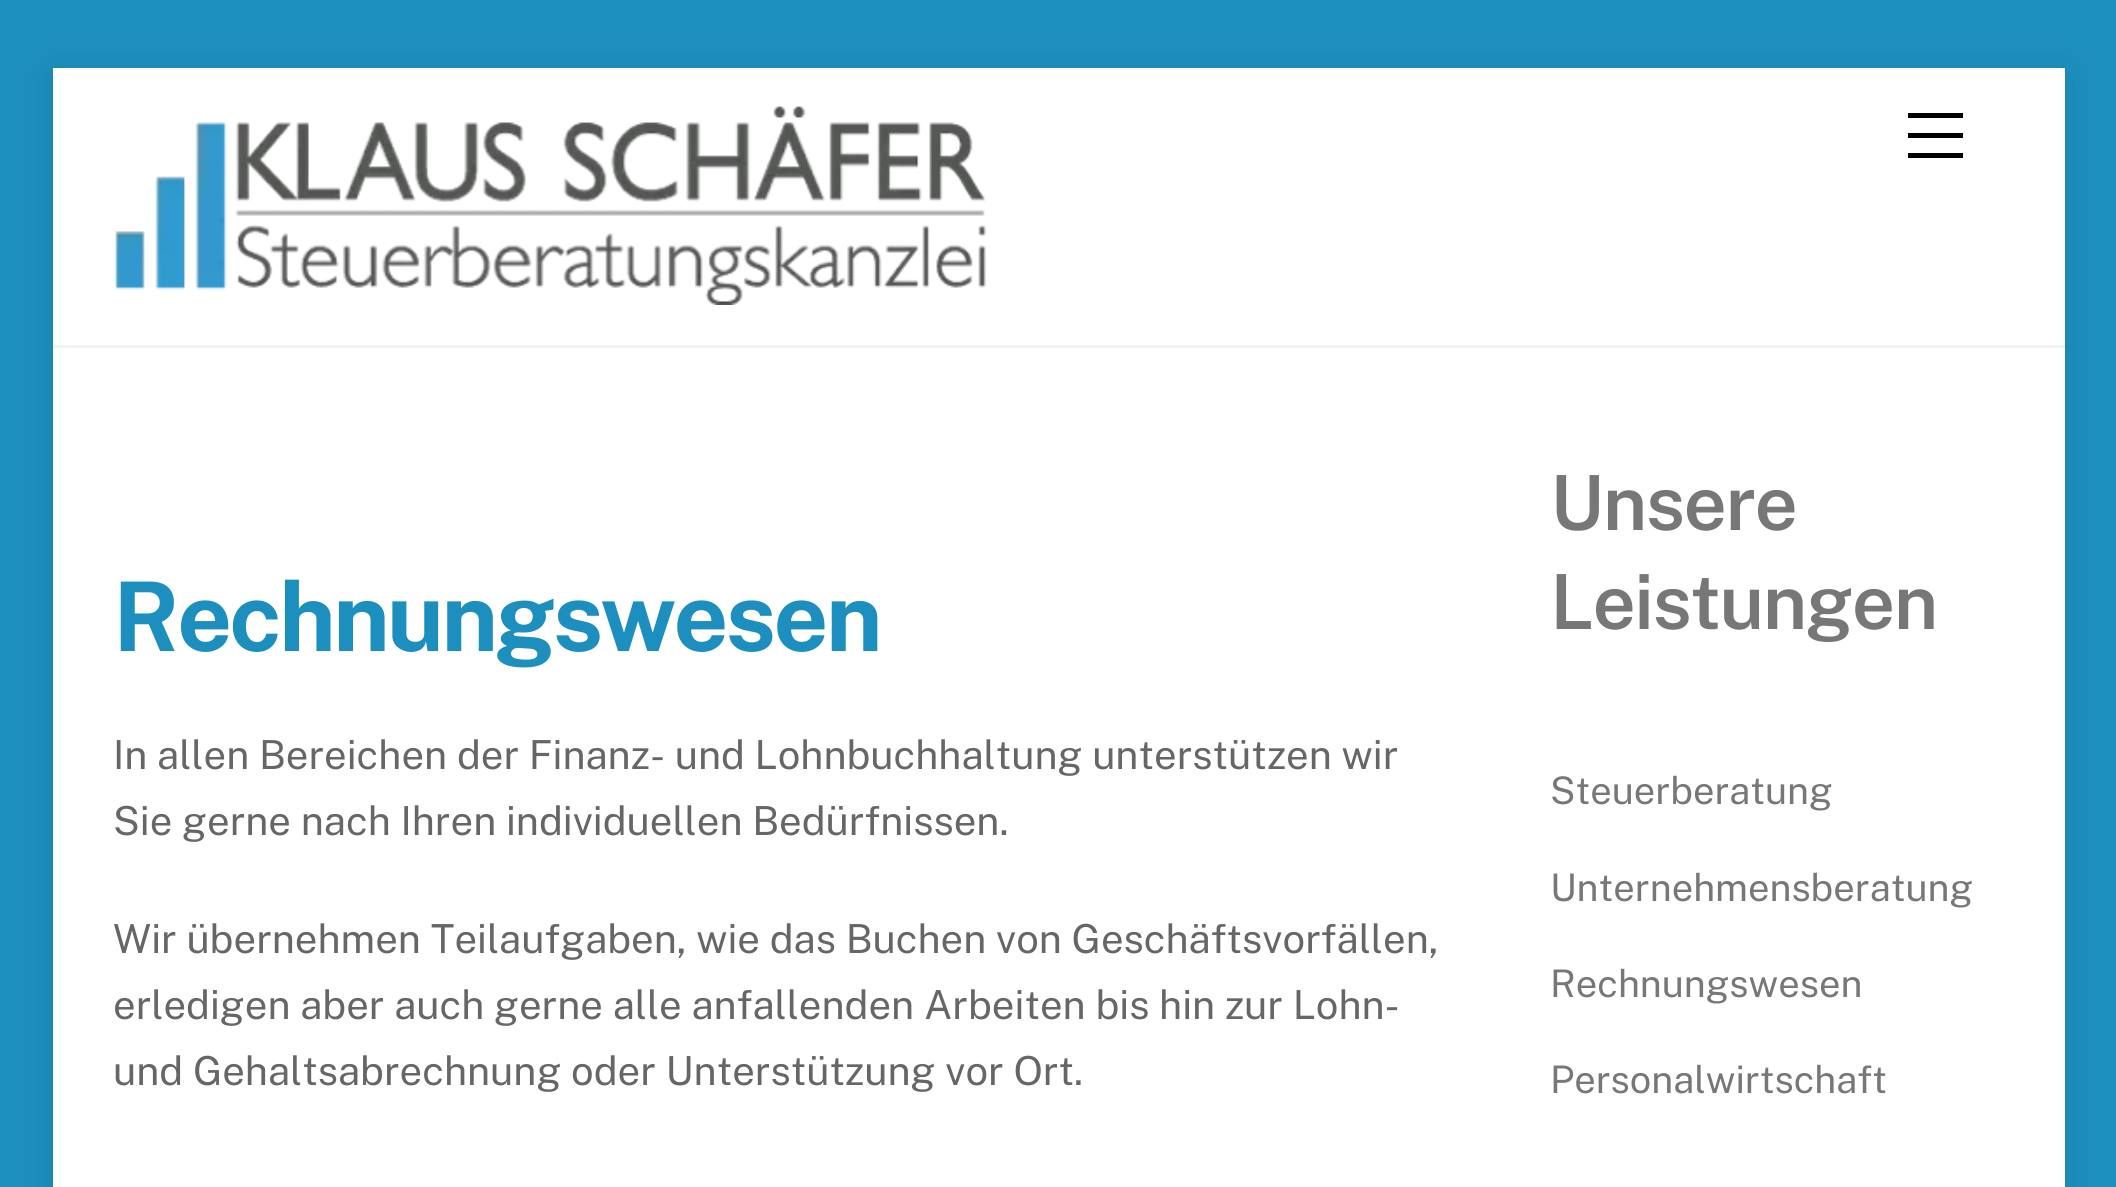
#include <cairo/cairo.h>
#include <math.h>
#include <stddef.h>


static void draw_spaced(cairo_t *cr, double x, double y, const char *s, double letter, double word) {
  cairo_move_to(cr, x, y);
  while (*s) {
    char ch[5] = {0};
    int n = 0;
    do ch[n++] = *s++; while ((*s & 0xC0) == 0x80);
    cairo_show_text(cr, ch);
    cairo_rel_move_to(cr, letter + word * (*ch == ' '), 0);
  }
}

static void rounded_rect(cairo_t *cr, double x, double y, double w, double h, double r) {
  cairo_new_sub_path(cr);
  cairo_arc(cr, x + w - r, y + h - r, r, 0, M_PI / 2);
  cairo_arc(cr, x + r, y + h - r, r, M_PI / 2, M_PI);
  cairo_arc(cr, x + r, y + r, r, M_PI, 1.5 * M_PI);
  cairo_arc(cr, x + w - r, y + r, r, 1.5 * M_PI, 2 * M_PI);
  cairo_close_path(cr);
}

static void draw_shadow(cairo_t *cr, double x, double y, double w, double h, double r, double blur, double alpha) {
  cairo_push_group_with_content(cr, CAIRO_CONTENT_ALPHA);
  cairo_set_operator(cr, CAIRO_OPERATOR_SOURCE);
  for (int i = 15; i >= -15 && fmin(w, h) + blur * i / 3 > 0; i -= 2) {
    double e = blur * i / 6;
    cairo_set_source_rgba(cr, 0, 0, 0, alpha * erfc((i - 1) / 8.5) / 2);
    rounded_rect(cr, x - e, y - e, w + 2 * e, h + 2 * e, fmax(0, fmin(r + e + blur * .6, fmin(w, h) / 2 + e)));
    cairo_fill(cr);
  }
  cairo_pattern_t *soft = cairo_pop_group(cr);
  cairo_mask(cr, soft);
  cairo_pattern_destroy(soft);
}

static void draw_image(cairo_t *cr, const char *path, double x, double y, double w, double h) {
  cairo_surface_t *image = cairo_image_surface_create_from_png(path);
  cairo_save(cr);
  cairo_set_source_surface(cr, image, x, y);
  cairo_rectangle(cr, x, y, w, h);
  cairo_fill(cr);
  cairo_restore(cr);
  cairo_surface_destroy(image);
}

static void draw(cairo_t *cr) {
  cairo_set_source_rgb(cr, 29 / 255.0, 143 / 255.0, 191 / 255.0);
  cairo_paint(cr);
  cairo_set_source_rgb(cr, 0, 0, 0);
  draw_shadow(cr, 53, 75, 2012, 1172, 0, 20, 0.1);
  cairo_set_source_rgb(cr, 1, 1, 1);
  cairo_rectangle(cr, 53, 68, 2012, 1119);
  cairo_fill(cr);
  cairo_set_source_rgb(cr, 242 / 255.0, 242 / 255.0, 242 / 255.0);
  cairo_rectangle(cr, 53, 345, 2012, 3);
  cairo_fill(cr);
  draw_image(cr, "images/1.png", 115, 106, 872, 199);
  cairo_set_source_rgb(cr, 0, 0, 0);
  cairo_rectangle(cr, 1908, 153, 55, 5);
  cairo_fill(cr);
  cairo_rectangle(cr, 1908, 113, 55, 5);
  cairo_fill(cr);
  cairo_rectangle(cr, 1908, 133, 55, 5);
  cairo_fill(cr);
  cairo_select_font_face(cr, "Public Sans", CAIRO_FONT_SLANT_NORMAL, CAIRO_FONT_WEIGHT_BOLD);
  cairo_set_font_size(cr, 96);
  cairo_set_source_rgb(cr, 29 / 255.0, 143 / 255.0, 191 / 255.0);
  draw_spaced(cr, 113, 651, "Rechnungswesen", -2.9, 0);
  cairo_select_font_face(cr, "Public Sans", CAIRO_FONT_SLANT_NORMAL, CAIRO_FONT_WEIGHT_NORMAL);
  cairo_set_font_size(cr, 40);
  cairo_set_source_rgb(cr, 102 / 255.0, 102 / 255.0, 102 / 255.0);
  cairo_move_to(cr, 113, 769);
  cairo_show_text(cr, "In allen Bereichen der Finanz- und Lohnbuchhaltung unterstützen wir");
  cairo_move_to(cr, 113, 835);
  cairo_show_text(cr, "Sie gerne nach Ihren individuellen Bedürfnissen.");
  cairo_move_to(cr, 113, 953);
  cairo_show_text(cr, "Wir übernehmen Teilaufgaben, wie das Buchen von Geschäftsvorfällen,");
  cairo_move_to(cr, 113, 1019);
  cairo_show_text(cr, "erledigen aber auch gerne alle anfallenden Arbeiten bis hin zur Lohn-");
  cairo_move_to(cr, 113, 1085);
  cairo_show_text(cr, "und Gehaltsabrechnung oder Unterstützung vor Ort.");
  cairo_select_font_face(cr, "Public Sans SemiBold", CAIRO_FONT_SLANT_NORMAL, CAIRO_FONT_WEIGHT_NORMAL);
  cairo_set_font_size(cr, 76);
  cairo_set_source_rgb(cr, 119 / 255.0, 119 / 255.0, 119 / 255.0);
  draw_spaced(cr, 1550, 530, "Unsere", -1.5, 0);
  draw_spaced(cr, 1550, 629, "Leistungen", -1.5, 0);
  cairo_select_font_face(cr, "Public Sans", CAIRO_FONT_SLANT_NORMAL, CAIRO_FONT_WEIGHT_NORMAL);
  cairo_set_font_size(cr, 38);
  cairo_move_to(cr, 1550, 804);
  cairo_show_text(cr, "Steuerberatung");
  cairo_move_to(cr, 1550, 901);
  cairo_show_text(cr, "Unternehmensberatung");
  cairo_move_to(cr, 1550, 997);
  cairo_show_text(cr, "Rechnungswesen");
  cairo_move_to(cr, 1550, 1093);
  cairo_show_text(cr, "Personalwirtschaft");
}

int main(void) {
  cairo_surface_t *surface = cairo_image_surface_create(CAIRO_FORMAT_RGB24, 2116, 1187);
  cairo_t *cr = cairo_create(surface);
  cairo_font_options_t *options = cairo_font_options_create();
  cairo_font_options_set_hint_metrics(options, CAIRO_HINT_METRICS_OFF);
  cairo_font_options_set_hint_style(options, CAIRO_HINT_STYLE_NONE);
  cairo_set_font_options(cr, options);
  cairo_set_miter_limit(cr, 4);
  draw(cr);
  cairo_surface_write_to_png(surface, "out.png");
  cairo_font_options_destroy(options);
  cairo_destroy(cr);
  cairo_surface_destroy(surface);
  return 0;
}
